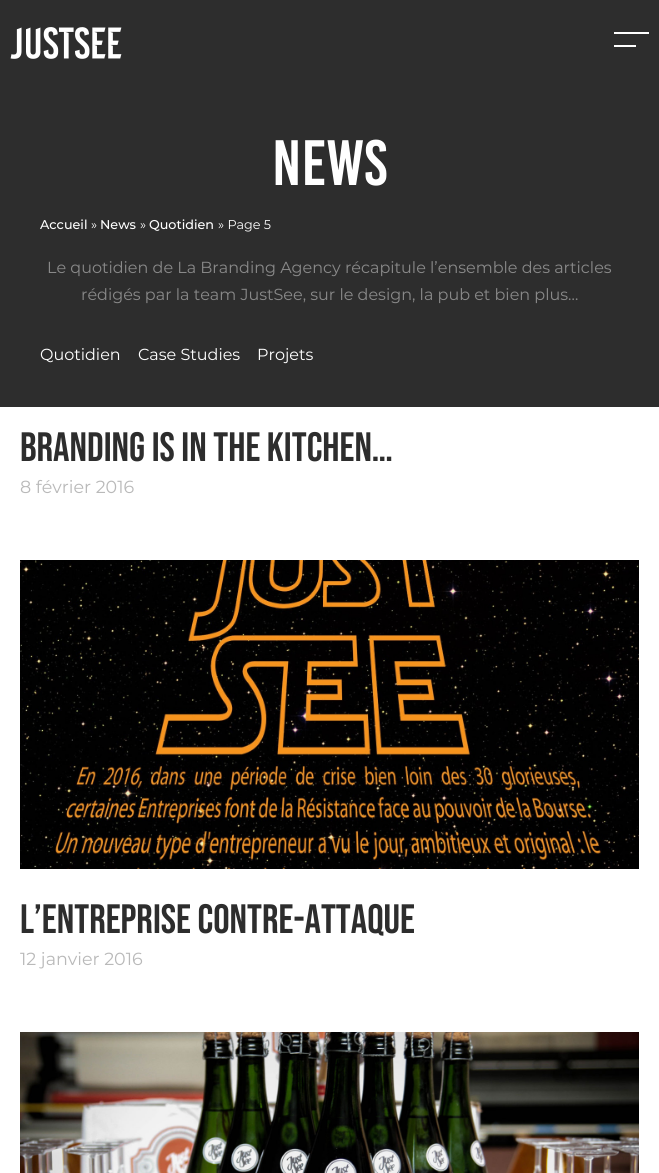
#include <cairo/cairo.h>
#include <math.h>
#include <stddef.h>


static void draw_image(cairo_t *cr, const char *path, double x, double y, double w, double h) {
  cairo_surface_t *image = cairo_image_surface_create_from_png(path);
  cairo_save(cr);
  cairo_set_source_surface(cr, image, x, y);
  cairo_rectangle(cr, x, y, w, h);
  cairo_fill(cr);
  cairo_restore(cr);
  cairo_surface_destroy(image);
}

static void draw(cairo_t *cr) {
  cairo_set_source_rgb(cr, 1, 1, 1);
  cairo_paint(cr);
  cairo_set_source_rgb(cr, 45 / 255.0, 45 / 255.0, 45 / 255.0);
  cairo_rectangle(cr, 0, 0, 659, 407);
  cairo_fill(cr);
  draw_image(cr, "images/1.png", 10, 27, 112, 32);
  cairo_set_source_rgb(cr, 1, 1, 1);
  cairo_rectangle(cr, 614, 32, 35, 2);
  cairo_fill(cr);
  cairo_rectangle(cr, 614, 45, 22, 2);
  cairo_fill(cr);
  draw_image(cr, "images/2.png", 20, 560, 619, 309);
  draw_image(cr, "images/3.png", 20, 1032, 619, 141);
  cairo_select_font_face(cr, "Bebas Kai", CAIRO_FONT_SLANT_NORMAL, CAIRO_FONT_WEIGHT_NORMAL);
  cairo_set_font_size(cr, 64);
  cairo_move_to(cr, 272, 185);
  cairo_show_text(cr, "News");
  cairo_select_font_face(cr, "Montserrat Medium", CAIRO_FONT_SLANT_NORMAL, CAIRO_FONT_WEIGHT_NORMAL);
  cairo_set_font_size(cr, 12.75);
  cairo_move_to(cr, 40, 229);
  cairo_show_text(cr, "Accueil");
  cairo_select_font_face(cr, "Montserrat", CAIRO_FONT_SLANT_NORMAL, CAIRO_FONT_WEIGHT_NORMAL);
  cairo_move_to(cr, 91, 229);
  cairo_show_text(cr, "»");
  cairo_select_font_face(cr, "Montserrat Medium", CAIRO_FONT_SLANT_NORMAL, CAIRO_FONT_WEIGHT_NORMAL);
  cairo_move_to(cr, 100, 229);
  cairo_show_text(cr, "News");
  cairo_select_font_face(cr, "Montserrat", CAIRO_FONT_SLANT_NORMAL, CAIRO_FONT_WEIGHT_NORMAL);
  cairo_move_to(cr, 140, 229);
  cairo_show_text(cr, "»");
  cairo_select_font_face(cr, "Montserrat Medium", CAIRO_FONT_SLANT_NORMAL, CAIRO_FONT_WEIGHT_NORMAL);
  cairo_move_to(cr, 149, 229);
  cairo_show_text(cr, "Quotidien");
  cairo_select_font_face(cr, "Montserrat", CAIRO_FONT_SLANT_NORMAL, CAIRO_FONT_WEIGHT_NORMAL);
  cairo_move_to(cr, 218, 229);
  cairo_show_text(cr, "» Page 5");
  cairo_set_font_size(cr, 16);
  cairo_set_source_rgb(cr, 137 / 255.0, 137 / 255.0, 137 / 255.0);
  cairo_move_to(cr, 47, 273);
  cairo_show_text(cr, "Le quotidien de La Branding Agency récapitule l’ensemble des articles");
  cairo_move_to(cr, 81, 300);
  cairo_show_text(cr, "rédigés par la team JustSee, sur le design, la pub et bien plus…");
  cairo_set_source_rgb(cr, 1, 1, 1);
  cairo_move_to(cr, 40, 360);
  cairo_show_text(cr, "Quotidien");
  cairo_move_to(cr, 138, 360);
  cairo_show_text(cr, "Case Studies");
  cairo_move_to(cr, 257, 360);
  cairo_show_text(cr, "Projets");
  cairo_select_font_face(cr, "Bebas Neue", CAIRO_FONT_SLANT_NORMAL, CAIRO_FONT_WEIGHT_NORMAL);
  cairo_set_font_size(cr, 41);
  cairo_set_source_rgb(cr, 45 / 255.0, 45 / 255.0, 45 / 255.0);
  cairo_move_to(cr, 20, 461);
  cairo_show_text(cr, "Branding is in the kitchen…");
  cairo_select_font_face(cr, "Montserrat", CAIRO_FONT_SLANT_NORMAL, CAIRO_FONT_WEIGHT_NORMAL);
  cairo_set_font_size(cr, 17.5);
  cairo_set_source_rgb(cr, 185 / 255.0, 185 / 255.0, 185 / 255.0);
  cairo_move_to(cr, 20, 493);
  cairo_show_text(cr, "8 février 2016");
  cairo_select_font_face(cr, "Bebas Neue", CAIRO_FONT_SLANT_NORMAL, CAIRO_FONT_WEIGHT_NORMAL);
  cairo_set_font_size(cr, 41);
  cairo_set_source_rgb(cr, 45 / 255.0, 45 / 255.0, 45 / 255.0);
  cairo_move_to(cr, 20, 933);
  cairo_show_text(cr, "L’Entreprise contre-attaque");
  cairo_select_font_face(cr, "Montserrat", CAIRO_FONT_SLANT_NORMAL, CAIRO_FONT_WEIGHT_NORMAL);
  cairo_set_font_size(cr, 17.5);
  cairo_set_source_rgb(cr, 185 / 255.0, 185 / 255.0, 185 / 255.0);
  cairo_move_to(cr, 20, 965);
  cairo_show_text(cr, "12 janvier 2016");
}

int main(void) {
  cairo_surface_t *surface = cairo_image_surface_create(CAIRO_FORMAT_RGB24, 659, 1173);
  cairo_t *cr = cairo_create(surface);
  cairo_font_options_t *options = cairo_font_options_create();
  cairo_font_options_set_hint_metrics(options, CAIRO_HINT_METRICS_OFF);
  cairo_font_options_set_hint_style(options, CAIRO_HINT_STYLE_NONE);
  cairo_set_font_options(cr, options);
  cairo_set_miter_limit(cr, 4);
  draw(cr);
  cairo_surface_write_to_png(surface, "out.png");
  cairo_font_options_destroy(options);
  cairo_destroy(cr);
  cairo_surface_destroy(surface);
  return 0;
}
